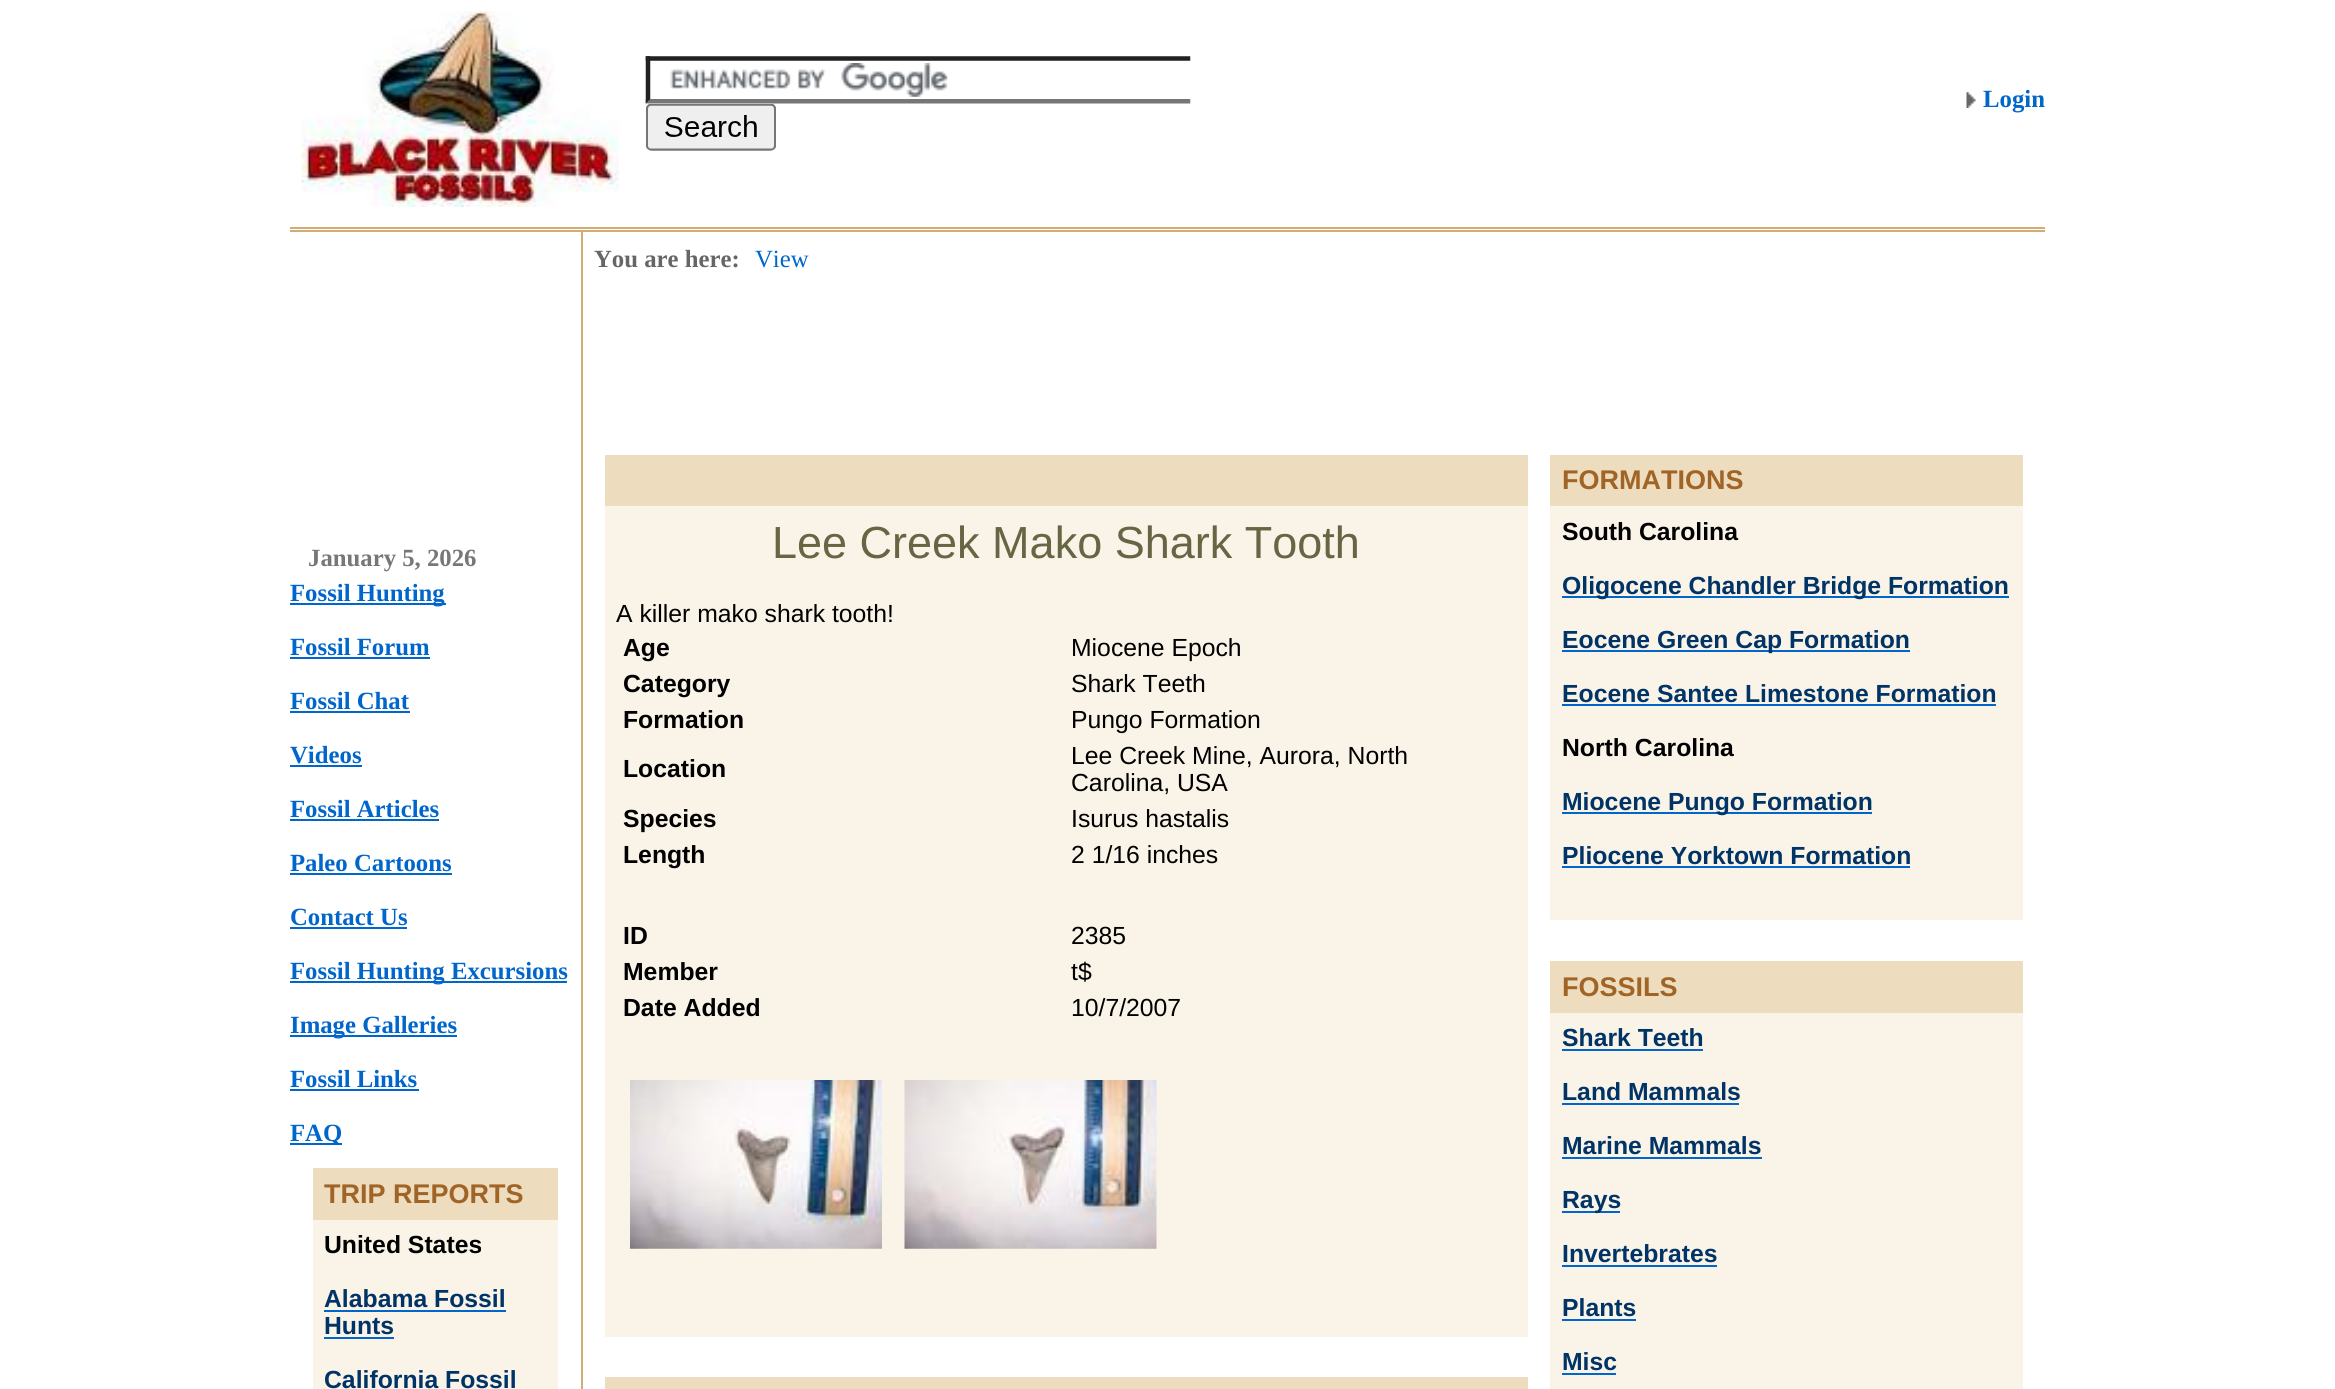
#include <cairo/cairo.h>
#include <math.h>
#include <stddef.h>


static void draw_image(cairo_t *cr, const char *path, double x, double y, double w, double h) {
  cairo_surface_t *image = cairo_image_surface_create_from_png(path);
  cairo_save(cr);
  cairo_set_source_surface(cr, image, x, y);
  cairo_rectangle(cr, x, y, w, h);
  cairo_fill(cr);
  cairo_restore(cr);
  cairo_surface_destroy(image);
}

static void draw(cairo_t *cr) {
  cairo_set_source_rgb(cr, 1, 1, 1);
  cairo_paint(cr);
  cairo_set_source_rgb(cr, 209 / 255.0, 172 / 255.0, 116 / 255.0);
  cairo_rectangle(cr, 290, 227, 1755, 2);
  cairo_fill(cr);
  draw_image(cr, "images/1.png", 301, 11, 318, 196);
  draw_image(cr, "images/2.png", 645, 56, 546, 95);
  draw_image(cr, "images/3.png", 1966, 92, 10, 16);
  cairo_rectangle(cr, 290, 230, 1755, 2);
  cairo_fill(cr);
  cairo_rectangle(cr, 581, 232, 2, 1157);
  cairo_fill(cr);
  cairo_set_source_rgb(cr, 0, 102 / 255.0, 204 / 255.0);
  cairo_rectangle(cr, 290, 603, 156, 2);
  cairo_fill(cr);
  cairo_rectangle(cr, 290, 657, 140, 2);
  cairo_fill(cr);
  cairo_rectangle(cr, 290, 711, 120, 2);
  cairo_fill(cr);
  cairo_rectangle(cr, 290, 765, 72, 2);
  cairo_fill(cr);
  cairo_rectangle(cr, 290, 819, 149, 2);
  cairo_fill(cr);
  cairo_rectangle(cr, 290, 873, 162, 2);
  cairo_fill(cr);
  cairo_rectangle(cr, 290, 927, 117, 2);
  cairo_fill(cr);
  cairo_rectangle(cr, 290, 981, 277, 2);
  cairo_fill(cr);
  cairo_rectangle(cr, 290, 1035, 167, 2);
  cairo_fill(cr);
  cairo_rectangle(cr, 290, 1089, 129, 2);
  cairo_fill(cr);
  cairo_rectangle(cr, 290, 1143, 52, 2);
  cairo_fill(cr);
  cairo_set_source_rgb(cr, 249 / 255.0, 243 / 255.0, 232 / 255.0);
  cairo_rectangle(cr, 313, 1220, 245, 169);
  cairo_fill(cr);
  cairo_set_source_rgb(cr, 237 / 255.0, 220 / 255.0, 190 / 255.0);
  cairo_rectangle(cr, 313, 1168, 245, 52);
  cairo_fill(cr);
  cairo_set_source_rgb(cr, 0, 102 / 255.0, 204 / 255.0);
  cairo_rectangle(cr, 324, 1310, 182, 2);
  cairo_fill(cr);
  cairo_rectangle(cr, 324, 1337, 70, 2);
  cairo_fill(cr);
  cairo_set_source_rgb(cr, 249 / 255.0, 243 / 255.0, 232 / 255.0);
  cairo_rectangle(cr, 605, 506, 923, 831);
  cairo_fill(cr);
  cairo_set_source_rgb(cr, 237 / 255.0, 220 / 255.0, 190 / 255.0);
  cairo_rectangle(cr, 605, 455, 923, 51);
  cairo_fill(cr);
  draw_image(cr, "images/4.png", 630, 1080, 252, 169);
  draw_image(cr, "images/5.png", 904, 1080, 253, 169);
  cairo_rectangle(cr, 605, 1377, 923, 12);
  cairo_fill(cr);
  cairo_set_source_rgb(cr, 249 / 255.0, 243 / 255.0, 232 / 255.0);
  cairo_rectangle(cr, 1550, 506, 473, 414);
  cairo_fill(cr);
  cairo_set_source_rgb(cr, 237 / 255.0, 220 / 255.0, 190 / 255.0);
  cairo_rectangle(cr, 1550, 455, 473, 51);
  cairo_fill(cr);
  cairo_set_source_rgb(cr, 0, 102 / 255.0, 204 / 255.0);
  cairo_rectangle(cr, 1562, 596, 447, 2);
  cairo_fill(cr);
  cairo_rectangle(cr, 1562, 650, 348, 2);
  cairo_fill(cr);
  cairo_rectangle(cr, 1562, 704, 434, 2);
  cairo_fill(cr);
  cairo_rectangle(cr, 1562, 812, 310, 2);
  cairo_fill(cr);
  cairo_rectangle(cr, 1562, 866, 348, 2);
  cairo_fill(cr);
  cairo_set_source_rgb(cr, 249 / 255.0, 243 / 255.0, 232 / 255.0);
  cairo_rectangle(cr, 1550, 1013, 473, 376);
  cairo_fill(cr);
  cairo_set_source_rgb(cr, 237 / 255.0, 220 / 255.0, 190 / 255.0);
  cairo_rectangle(cr, 1550, 961, 473, 52);
  cairo_fill(cr);
  cairo_set_source_rgb(cr, 0, 102 / 255.0, 204 / 255.0);
  cairo_rectangle(cr, 1562, 1049, 141, 2);
  cairo_fill(cr);
  cairo_rectangle(cr, 1562, 1103, 177, 2);
  cairo_fill(cr);
  cairo_rectangle(cr, 1562, 1157, 200, 2);
  cairo_fill(cr);
  cairo_rectangle(cr, 1562, 1211, 58, 2);
  cairo_fill(cr);
  cairo_rectangle(cr, 1562, 1265, 155, 2);
  cairo_fill(cr);
  cairo_rectangle(cr, 1562, 1319, 74, 2);
  cairo_fill(cr);
  cairo_rectangle(cr, 1562, 1373, 54, 2);
  cairo_fill(cr);
  cairo_select_font_face(cr, "Liberation Serif", CAIRO_FONT_SLANT_NORMAL, CAIRO_FONT_WEIGHT_BOLD);
  cairo_set_font_size(cr, 24.75);
  cairo_move_to(cr, 1983, 107);
  cairo_show_text(cr, "Login");
  cairo_set_source_rgb(cr, 119 / 255.0, 119 / 255.0, 119 / 255.0);
  cairo_move_to(cr, 308, 566);
  cairo_show_text(cr, "January 5, 2026");
  cairo_set_source_rgb(cr, 0, 102 / 255.0, 204 / 255.0);
  cairo_move_to(cr, 290, 601);
  cairo_show_text(cr, "Fossil Hunting");
  cairo_move_to(cr, 290, 655);
  cairo_show_text(cr, "Fossil Forum");
  cairo_move_to(cr, 290, 709);
  cairo_show_text(cr, "Fossil Chat");
  cairo_move_to(cr, 290, 763);
  cairo_show_text(cr, "Videos");
  cairo_move_to(cr, 290, 817);
  cairo_show_text(cr, "Fossil Articles");
  cairo_move_to(cr, 290, 871);
  cairo_show_text(cr, "Paleo Cartoons");
  cairo_move_to(cr, 290, 925);
  cairo_show_text(cr, "Contact Us");
  cairo_move_to(cr, 290, 979);
  cairo_show_text(cr, "Fossil Hunting Excursions");
  cairo_move_to(cr, 290, 1033);
  cairo_show_text(cr, "Image Galleries");
  cairo_move_to(cr, 290, 1087);
  cairo_show_text(cr, "Fossil Links");
  cairo_move_to(cr, 290, 1141);
  cairo_show_text(cr, "FAQ");
  cairo_select_font_face(cr, "Liberation Sans", CAIRO_FONT_SLANT_NORMAL, CAIRO_FONT_WEIGHT_BOLD);
  cairo_set_font_size(cr, 27);
  cairo_set_source_rgb(cr, 160 / 255.0, 100 / 255.0, 39 / 255.0);
  cairo_move_to(cr, 324, 1203);
  cairo_show_text(cr, "TRIP REPORTS");
  cairo_set_font_size(cr, 24.75);
  cairo_set_source_rgb(cr, 0, 0, 0);
  cairo_move_to(cr, 324, 1253);
  cairo_show_text(cr, "United States");
  cairo_set_source_rgb(cr, 0, 51 / 255.0, 102 / 255.0);
  cairo_move_to(cr, 324, 1307);
  cairo_show_text(cr, "Alabama Fossil");
  cairo_move_to(cr, 324, 1334);
  cairo_show_text(cr, "Hunts");
  cairo_move_to(cr, 324, 1388);
  cairo_show_text(cr, "California Fossil");
  cairo_select_font_face(cr, "Liberation Serif", CAIRO_FONT_SLANT_NORMAL, CAIRO_FONT_WEIGHT_BOLD);
  cairo_set_source_rgb(cr, 102 / 255.0, 102 / 255.0, 102 / 255.0);
  cairo_move_to(cr, 594, 267);
  cairo_show_text(cr, "You are here:");
  cairo_select_font_face(cr, "Liberation Serif", CAIRO_FONT_SLANT_NORMAL, CAIRO_FONT_WEIGHT_NORMAL);
  cairo_set_source_rgb(cr, 0, 102 / 255.0, 204 / 255.0);
  cairo_move_to(cr, 755, 267);
  cairo_show_text(cr, "View");
  cairo_select_font_face(cr, "Liberation Sans", CAIRO_FONT_SLANT_NORMAL, CAIRO_FONT_WEIGHT_NORMAL);
  cairo_set_font_size(cr, 45);
  cairo_set_source_rgb(cr, 102 / 255.0, 102 / 255.0, 68 / 255.0);
  cairo_move_to(cr, 772, 558);
  cairo_show_text(cr, "Lee Creek Mako Shark Tooth");
  cairo_set_font_size(cr, 24.75);
  cairo_set_source_rgb(cr, 0, 0, 0);
  cairo_move_to(cr, 616, 622);
  cairo_show_text(cr, "A killer mako shark tooth!");
  cairo_select_font_face(cr, "Liberation Sans", CAIRO_FONT_SLANT_NORMAL, CAIRO_FONT_WEIGHT_BOLD);
  cairo_move_to(cr, 623, 656);
  cairo_show_text(cr, "Age");
  cairo_select_font_face(cr, "Liberation Sans", CAIRO_FONT_SLANT_NORMAL, CAIRO_FONT_WEIGHT_NORMAL);
  cairo_move_to(cr, 1071, 656);
  cairo_show_text(cr, "Miocene Epoch");
  cairo_select_font_face(cr, "Liberation Sans", CAIRO_FONT_SLANT_NORMAL, CAIRO_FONT_WEIGHT_BOLD);
  cairo_move_to(cr, 623, 692);
  cairo_show_text(cr, "Category");
  cairo_select_font_face(cr, "Liberation Sans", CAIRO_FONT_SLANT_NORMAL, CAIRO_FONT_WEIGHT_NORMAL);
  cairo_move_to(cr, 1071, 692);
  cairo_show_text(cr, "Shark Teeth");
  cairo_select_font_face(cr, "Liberation Sans", CAIRO_FONT_SLANT_NORMAL, CAIRO_FONT_WEIGHT_BOLD);
  cairo_move_to(cr, 623, 728);
  cairo_show_text(cr, "Formation");
  cairo_select_font_face(cr, "Liberation Sans", CAIRO_FONT_SLANT_NORMAL, CAIRO_FONT_WEIGHT_NORMAL);
  cairo_move_to(cr, 1071, 728);
  cairo_show_text(cr, "Pungo Formation");
  cairo_select_font_face(cr, "Liberation Sans", CAIRO_FONT_SLANT_NORMAL, CAIRO_FONT_WEIGHT_BOLD);
  cairo_move_to(cr, 623, 777);
  cairo_show_text(cr, "Location");
  cairo_select_font_face(cr, "Liberation Sans", CAIRO_FONT_SLANT_NORMAL, CAIRO_FONT_WEIGHT_NORMAL);
  cairo_move_to(cr, 1071, 764);
  cairo_show_text(cr, "Lee Creek Mine, Aurora, North");
  cairo_move_to(cr, 1071, 791);
  cairo_show_text(cr, "Carolina, USA");
  cairo_select_font_face(cr, "Liberation Sans", CAIRO_FONT_SLANT_NORMAL, CAIRO_FONT_WEIGHT_BOLD);
  cairo_move_to(cr, 623, 827);
  cairo_show_text(cr, "Species");
  cairo_select_font_face(cr, "Liberation Sans", CAIRO_FONT_SLANT_NORMAL, CAIRO_FONT_WEIGHT_NORMAL);
  cairo_move_to(cr, 1071, 827);
  cairo_show_text(cr, "Isurus hastalis");
  cairo_select_font_face(cr, "Liberation Sans", CAIRO_FONT_SLANT_NORMAL, CAIRO_FONT_WEIGHT_BOLD);
  cairo_move_to(cr, 623, 863);
  cairo_show_text(cr, "Length");
  cairo_select_font_face(cr, "Liberation Sans", CAIRO_FONT_SLANT_NORMAL, CAIRO_FONT_WEIGHT_NORMAL);
  cairo_move_to(cr, 1071, 863);
  cairo_show_text(cr, "2 1/16 inches");
  cairo_select_font_face(cr, "Liberation Sans", CAIRO_FONT_SLANT_NORMAL, CAIRO_FONT_WEIGHT_BOLD);
  cairo_move_to(cr, 623, 944);
  cairo_show_text(cr, "ID");
  cairo_select_font_face(cr, "Liberation Sans", CAIRO_FONT_SLANT_NORMAL, CAIRO_FONT_WEIGHT_NORMAL);
  cairo_move_to(cr, 1071, 944);
  cairo_show_text(cr, "2385");
  cairo_select_font_face(cr, "Liberation Sans", CAIRO_FONT_SLANT_NORMAL, CAIRO_FONT_WEIGHT_BOLD);
  cairo_move_to(cr, 623, 980);
  cairo_show_text(cr, "Member");
  cairo_select_font_face(cr, "Liberation Sans", CAIRO_FONT_SLANT_NORMAL, CAIRO_FONT_WEIGHT_NORMAL);
  cairo_move_to(cr, 1071, 980);
  cairo_show_text(cr, "t$");
  cairo_select_font_face(cr, "Liberation Sans", CAIRO_FONT_SLANT_NORMAL, CAIRO_FONT_WEIGHT_BOLD);
  cairo_move_to(cr, 623, 1016);
  cairo_show_text(cr, "Date Added");
  cairo_select_font_face(cr, "Liberation Sans", CAIRO_FONT_SLANT_NORMAL, CAIRO_FONT_WEIGHT_NORMAL);
  cairo_move_to(cr, 1071, 1016);
  cairo_show_text(cr, "10/7/2007");
  cairo_select_font_face(cr, "Liberation Sans", CAIRO_FONT_SLANT_NORMAL, CAIRO_FONT_WEIGHT_BOLD);
  cairo_set_font_size(cr, 27);
  cairo_set_source_rgb(cr, 160 / 255.0, 100 / 255.0, 39 / 255.0);
  cairo_move_to(cr, 1562, 489);
  cairo_show_text(cr, "FORMATIONS");
  cairo_set_font_size(cr, 24.75);
  cairo_set_source_rgb(cr, 0, 0, 0);
  cairo_move_to(cr, 1562, 540);
  cairo_show_text(cr, "South Carolina");
  cairo_set_source_rgb(cr, 0, 51 / 255.0, 102 / 255.0);
  cairo_move_to(cr, 1562, 594);
  cairo_show_text(cr, "Oligocene Chandler Bridge Formation");
  cairo_move_to(cr, 1562, 648);
  cairo_show_text(cr, "Eocene Green Cap Formation");
  cairo_move_to(cr, 1562, 702);
  cairo_show_text(cr, "Eocene Santee Limestone Formation");
  cairo_set_source_rgb(cr, 0, 0, 0);
  cairo_move_to(cr, 1562, 756);
  cairo_show_text(cr, "North Carolina");
  cairo_set_source_rgb(cr, 0, 51 / 255.0, 102 / 255.0);
  cairo_move_to(cr, 1562, 810);
  cairo_show_text(cr, "Miocene Pungo Formation");
  cairo_move_to(cr, 1562, 864);
  cairo_show_text(cr, "Pliocene Yorktown Formation");
  cairo_set_font_size(cr, 27);
  cairo_set_source_rgb(cr, 160 / 255.0, 100 / 255.0, 39 / 255.0);
  cairo_move_to(cr, 1562, 996);
  cairo_show_text(cr, "FOSSILS");
  cairo_set_font_size(cr, 24.75);
  cairo_set_source_rgb(cr, 0, 51 / 255.0, 102 / 255.0);
  cairo_move_to(cr, 1562, 1046);
  cairo_show_text(cr, "Shark Teeth");
  cairo_move_to(cr, 1562, 1100);
  cairo_show_text(cr, "Land Mammals");
  cairo_move_to(cr, 1562, 1154);
  cairo_show_text(cr, "Marine Mammals");
  cairo_move_to(cr, 1562, 1208);
  cairo_show_text(cr, "Rays");
  cairo_move_to(cr, 1562, 1262);
  cairo_show_text(cr, "Invertebrates");
  cairo_move_to(cr, 1562, 1316);
  cairo_show_text(cr, "Plants");
  cairo_move_to(cr, 1562, 1370);
  cairo_show_text(cr, "Misc");
}

int main(void) {
  cairo_surface_t *surface = cairo_image_surface_create(CAIRO_FORMAT_RGB24, 2335, 1389);
  cairo_t *cr = cairo_create(surface);
  cairo_font_options_t *options = cairo_font_options_create();
  cairo_font_options_set_hint_metrics(options, CAIRO_HINT_METRICS_OFF);
  cairo_font_options_set_hint_style(options, CAIRO_HINT_STYLE_NONE);
  cairo_set_font_options(cr, options);
  cairo_set_miter_limit(cr, 4);
  draw(cr);
  cairo_surface_write_to_png(surface, "out.png");
  cairo_font_options_destroy(options);
  cairo_destroy(cr);
  cairo_surface_destroy(surface);
  return 0;
}
